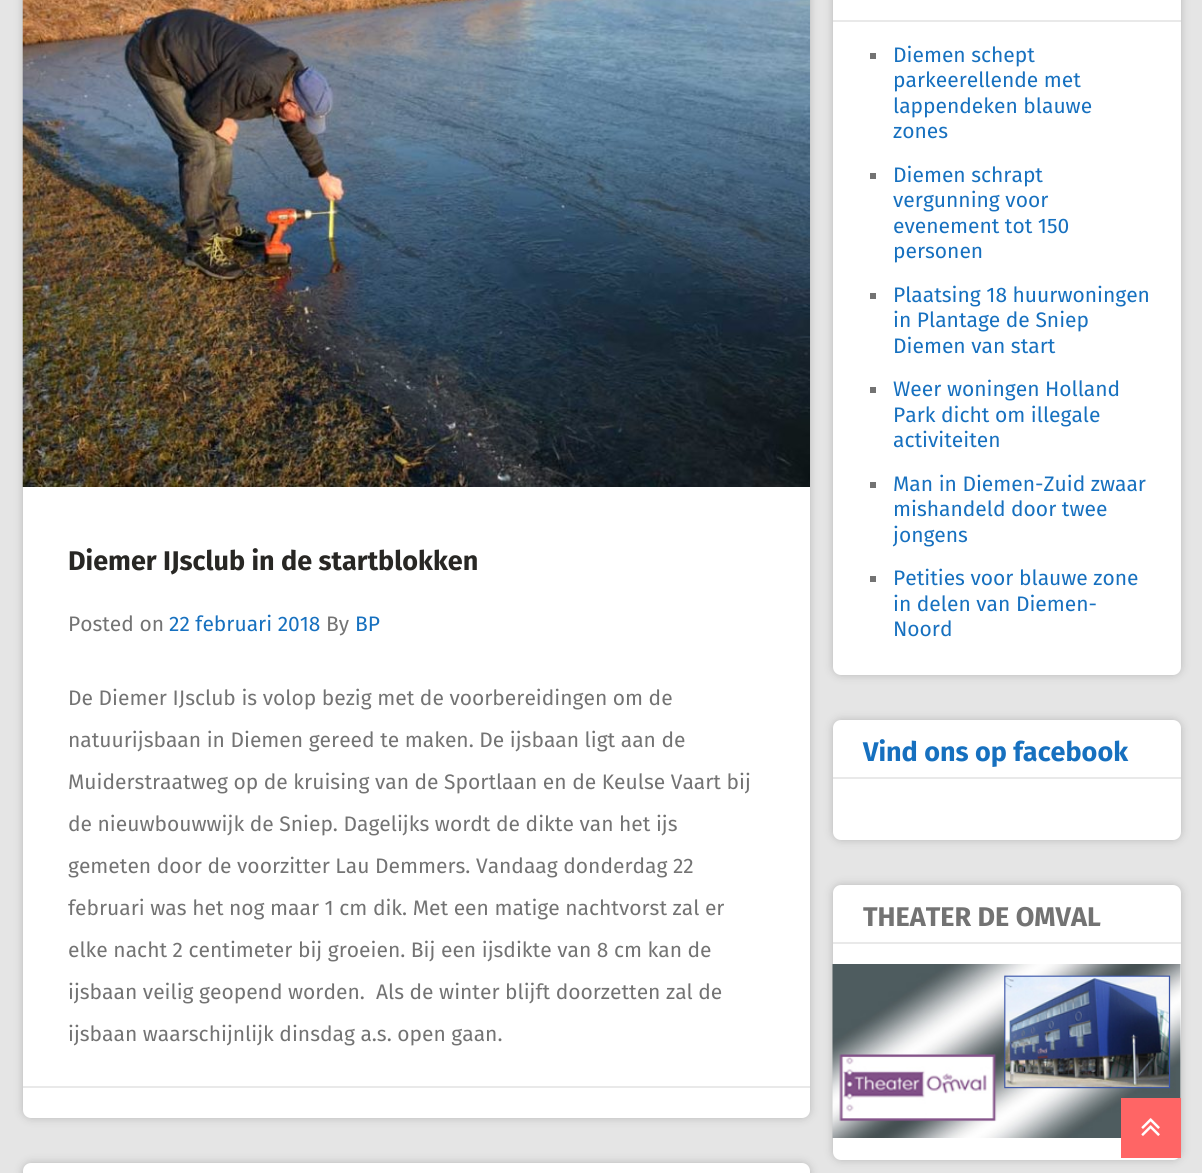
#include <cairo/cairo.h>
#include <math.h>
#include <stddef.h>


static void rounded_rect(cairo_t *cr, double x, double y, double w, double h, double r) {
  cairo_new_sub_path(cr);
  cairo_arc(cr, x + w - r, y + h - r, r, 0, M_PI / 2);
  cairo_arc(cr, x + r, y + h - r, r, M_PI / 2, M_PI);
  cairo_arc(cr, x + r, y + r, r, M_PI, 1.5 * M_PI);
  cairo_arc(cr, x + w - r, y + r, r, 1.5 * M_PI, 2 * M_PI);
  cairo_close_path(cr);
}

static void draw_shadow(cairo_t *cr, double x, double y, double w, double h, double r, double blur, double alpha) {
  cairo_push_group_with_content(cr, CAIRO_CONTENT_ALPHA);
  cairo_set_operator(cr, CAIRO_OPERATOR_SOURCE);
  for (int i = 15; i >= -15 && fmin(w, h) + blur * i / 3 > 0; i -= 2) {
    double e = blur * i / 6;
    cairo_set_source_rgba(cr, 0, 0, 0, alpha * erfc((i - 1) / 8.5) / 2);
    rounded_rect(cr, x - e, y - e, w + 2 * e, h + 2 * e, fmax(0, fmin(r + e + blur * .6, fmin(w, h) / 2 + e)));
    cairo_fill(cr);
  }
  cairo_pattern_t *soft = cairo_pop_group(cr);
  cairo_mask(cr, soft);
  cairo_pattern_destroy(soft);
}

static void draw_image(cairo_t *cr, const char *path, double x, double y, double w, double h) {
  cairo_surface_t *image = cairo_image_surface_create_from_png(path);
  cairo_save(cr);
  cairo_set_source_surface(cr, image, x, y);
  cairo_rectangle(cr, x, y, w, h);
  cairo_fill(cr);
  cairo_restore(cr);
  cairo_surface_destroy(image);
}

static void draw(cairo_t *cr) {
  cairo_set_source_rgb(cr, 229 / 255.0, 229 / 255.0, 229 / 255.0);
  cairo_paint(cr);
  cairo_set_source_rgb(cr, 0, 0, 0);
  draw_shadow(cr, 23, -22, 787, 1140, 8, 4.5, 0.2);
  cairo_set_source_rgb(cr, 1, 1, 1);
  rounded_rect(cr, 23, -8, 787, 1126, 8);
  cairo_fill(cr);
  draw_image(cr, "images/1.png", 22, 0, 788, 487);
  cairo_set_source_rgb(cr, 233 / 255.0, 233 / 255.0, 233 / 255.0);
  cairo_rectangle(cr, 23, 1086, 787, 2);
  cairo_fill(cr);
  cairo_set_source_rgb(cr, 0, 0, 0);
  draw_shadow(cr, 23, 1163, 787, 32, 8, 4.5, 0.2);
  cairo_set_source_rgb(cr, 1, 1, 1);
  rounded_rect(cr, 23, 1163, 787, 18, 8);
  cairo_fill(cr);
  cairo_set_source_rgb(cr, 0, 0, 0);
  draw_shadow(cr, 833, -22, 348, 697, 8, 4.5, 0.2);
  cairo_set_source_rgb(cr, 1, 1, 1);
  rounded_rect(cr, 833, -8, 348, 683, 8);
  cairo_fill(cr);
  cairo_set_source_rgb(cr, 233 / 255.0, 233 / 255.0, 233 / 255.0);
  cairo_rectangle(cr, 833, 20, 348, 2);
  cairo_fill(cr);
  cairo_set_source_rgb(cr, 115 / 255.0, 115 / 255.0, 115 / 255.0);
  cairo_rectangle(cr, 870, 53, 6, 6);
  cairo_fill(cr);
  cairo_rectangle(cr, 870, 173, 6, 6);
  cairo_fill(cr);
  cairo_rectangle(cr, 870, 293, 6, 6);
  cairo_fill(cr);
  cairo_rectangle(cr, 870, 387, 6, 6);
  cairo_fill(cr);
  cairo_rectangle(cr, 870, 482, 6, 6);
  cairo_fill(cr);
  cairo_rectangle(cr, 870, 576, 6, 6);
  cairo_fill(cr);
  cairo_set_source_rgb(cr, 0, 0, 0);
  draw_shadow(cr, 833, 720, 348, 120, 8, 4.5, 0.2);
  cairo_set_source_rgb(cr, 1, 1, 1);
  rounded_rect(cr, 833, 720, 348, 120, 8);
  cairo_fill(cr);
  cairo_set_source_rgb(cr, 233 / 255.0, 233 / 255.0, 233 / 255.0);
  cairo_rectangle(cr, 833, 777, 348, 2);
  cairo_fill(cr);
  cairo_set_source_rgb(cr, 0, 0, 0);
  draw_shadow(cr, 833, 885, 348, 275, 8, 4.5, 0.2);
  cairo_set_source_rgb(cr, 1, 1, 1);
  rounded_rect(cr, 833, 885, 348, 275, 8);
  cairo_fill(cr);
  cairo_set_source_rgb(cr, 233 / 255.0, 233 / 255.0, 233 / 255.0);
  cairo_rectangle(cr, 833, 942, 348, 2);
  cairo_fill(cr);
  draw_image(cr, "images/2.png", 832, 964, 349, 174);
  cairo_set_source_rgb(cr, 1, 101 / 255.0, 101 / 255.0);
  cairo_rectangle(cr, 1121, 1098, 60, 60);
  cairo_fill(cr);
  draw_image(cr, "images/3.png", 1141, 1118, 19, 18);
  cairo_select_font_face(cr, "Fira Sans", CAIRO_FONT_SLANT_NORMAL, CAIRO_FONT_WEIGHT_BOLD);
  cairo_set_font_size(cr, 27);
  cairo_set_source_rgb(cr, 40 / 255.0, 39 / 255.0, 36 / 255.0);
  cairo_move_to(cr, 68, 570);
  cairo_show_text(cr, "Diemer IJsclub in de startblokken");
  cairo_select_font_face(cr, "Fira Sans", CAIRO_FONT_SLANT_NORMAL, CAIRO_FONT_WEIGHT_NORMAL);
  cairo_set_font_size(cr, 21);
  cairo_set_source_rgb(cr, 115 / 255.0, 115 / 255.0, 115 / 255.0);
  cairo_move_to(cr, 68, 631);
  cairo_show_text(cr, "Posted on");
  cairo_set_source_rgb(cr, 22 / 255.0, 112 / 255.0, 191 / 255.0);
  cairo_move_to(cr, 169, 631);
  cairo_show_text(cr, "22 februari 2018");
  cairo_set_source_rgb(cr, 115 / 255.0, 115 / 255.0, 115 / 255.0);
  cairo_move_to(cr, 326, 631);
  cairo_show_text(cr, "By");
  cairo_set_source_rgb(cr, 22 / 255.0, 112 / 255.0, 191 / 255.0);
  cairo_move_to(cr, 355, 631);
  cairo_show_text(cr, "BP");
  cairo_set_source_rgb(cr, 115 / 255.0, 115 / 255.0, 115 / 255.0);
  cairo_move_to(cr, 68, 705);
  cairo_show_text(cr, "De Diemer IJsclub is volop bezig met de voorbereidingen om de");
  cairo_move_to(cr, 68, 747);
  cairo_show_text(cr, "natuurijsbaan in Diemen gereed te maken. De ijsbaan ligt aan de");
  cairo_move_to(cr, 68, 789);
  cairo_show_text(cr, "Muiderstraatweg op de kruising van de Sportlaan en de Keulse Vaart bij");
  cairo_move_to(cr, 68, 831);
  cairo_show_text(cr, "de nieuwbouwwijk de Sniep. Dagelijks wordt de dikte van het ijs");
  cairo_move_to(cr, 68, 873);
  cairo_show_text(cr, "gemeten door de voorzitter Lau Demmers. Vandaag donderdag 22");
  cairo_move_to(cr, 68, 915);
  cairo_show_text(cr, "februari was het nog maar 1 cm dik. Met een matige nachtvorst zal er");
  cairo_move_to(cr, 68, 957);
  cairo_show_text(cr, "elke nacht 2 centimeter bij groeien. Bij een ijsdikte van 8 cm kan de");
  cairo_move_to(cr, 68, 999);
  cairo_show_text(cr, "ijsbaan veilig geopend worden.  Als de winter blijft doorzetten zal de");
  cairo_move_to(cr, 68, 1041);
  cairo_show_text(cr, "ijsbaan waarschijnlijk dinsdag a.s. open gaan.");
  cairo_set_source_rgb(cr, 22 / 255.0, 112 / 255.0, 191 / 255.0);
  cairo_move_to(cr, 893, 62);
  cairo_show_text(cr, "Diemen schept");
  cairo_move_to(cr, 893, 87);
  cairo_show_text(cr, "parkeerellende met");
  cairo_move_to(cr, 893, 113);
  cairo_show_text(cr, "lappendeken blauwe");
  cairo_move_to(cr, 893, 138);
  cairo_show_text(cr, "zones");
  cairo_move_to(cr, 893, 182);
  cairo_show_text(cr, "Diemen schrapt");
  cairo_move_to(cr, 893, 207);
  cairo_show_text(cr, "vergunning voor");
  cairo_move_to(cr, 893, 233);
  cairo_show_text(cr, "evenement tot 150");
  cairo_move_to(cr, 893, 258);
  cairo_show_text(cr, "personen");
  cairo_move_to(cr, 893, 302);
  cairo_show_text(cr, "Plaatsing 18 huurwoningen");
  cairo_move_to(cr, 893, 327);
  cairo_show_text(cr, "in Plantage de Sniep");
  cairo_move_to(cr, 893, 353);
  cairo_show_text(cr, "Diemen van start");
  cairo_move_to(cr, 893, 396);
  cairo_show_text(cr, "Weer woningen Holland");
  cairo_move_to(cr, 893, 422);
  cairo_show_text(cr, "Park dicht om illegale");
  cairo_move_to(cr, 893, 447);
  cairo_show_text(cr, "activiteiten");
  cairo_move_to(cr, 893, 491);
  cairo_show_text(cr, "Man in Diemen-Zuid zwaar");
  cairo_move_to(cr, 893, 516);
  cairo_show_text(cr, "mishandeld door twee");
  cairo_move_to(cr, 893, 542);
  cairo_show_text(cr, "jongens");
  cairo_move_to(cr, 893, 585);
  cairo_show_text(cr, "Petities voor blauwe zone");
  cairo_move_to(cr, 893, 611);
  cairo_show_text(cr, "in delen van Diemen-");
  cairo_move_to(cr, 893, 636);
  cairo_show_text(cr, "Noord");
  cairo_select_font_face(cr, "Fira Sans", CAIRO_FONT_SLANT_NORMAL, CAIRO_FONT_WEIGHT_BOLD);
  cairo_set_font_size(cr, 27);
  cairo_move_to(cr, 863, 761);
  cairo_show_text(cr, "Vind ons op facebook");
  cairo_set_source_rgb(cr, 115 / 255.0, 115 / 255.0, 115 / 255.0);
  cairo_move_to(cr, 863, 926);
  cairo_show_text(cr, "THEATER DE OMVAL");
}

int main(void) {
  cairo_surface_t *surface = cairo_image_surface_create(CAIRO_FORMAT_RGB24, 1202, 1173);
  cairo_t *cr = cairo_create(surface);
  cairo_font_options_t *options = cairo_font_options_create();
  cairo_font_options_set_hint_metrics(options, CAIRO_HINT_METRICS_OFF);
  cairo_font_options_set_hint_style(options, CAIRO_HINT_STYLE_NONE);
  cairo_set_font_options(cr, options);
  cairo_set_miter_limit(cr, 4);
  draw(cr);
  cairo_surface_write_to_png(surface, "out.png");
  cairo_font_options_destroy(options);
  cairo_destroy(cr);
  cairo_surface_destroy(surface);
  return 0;
}
